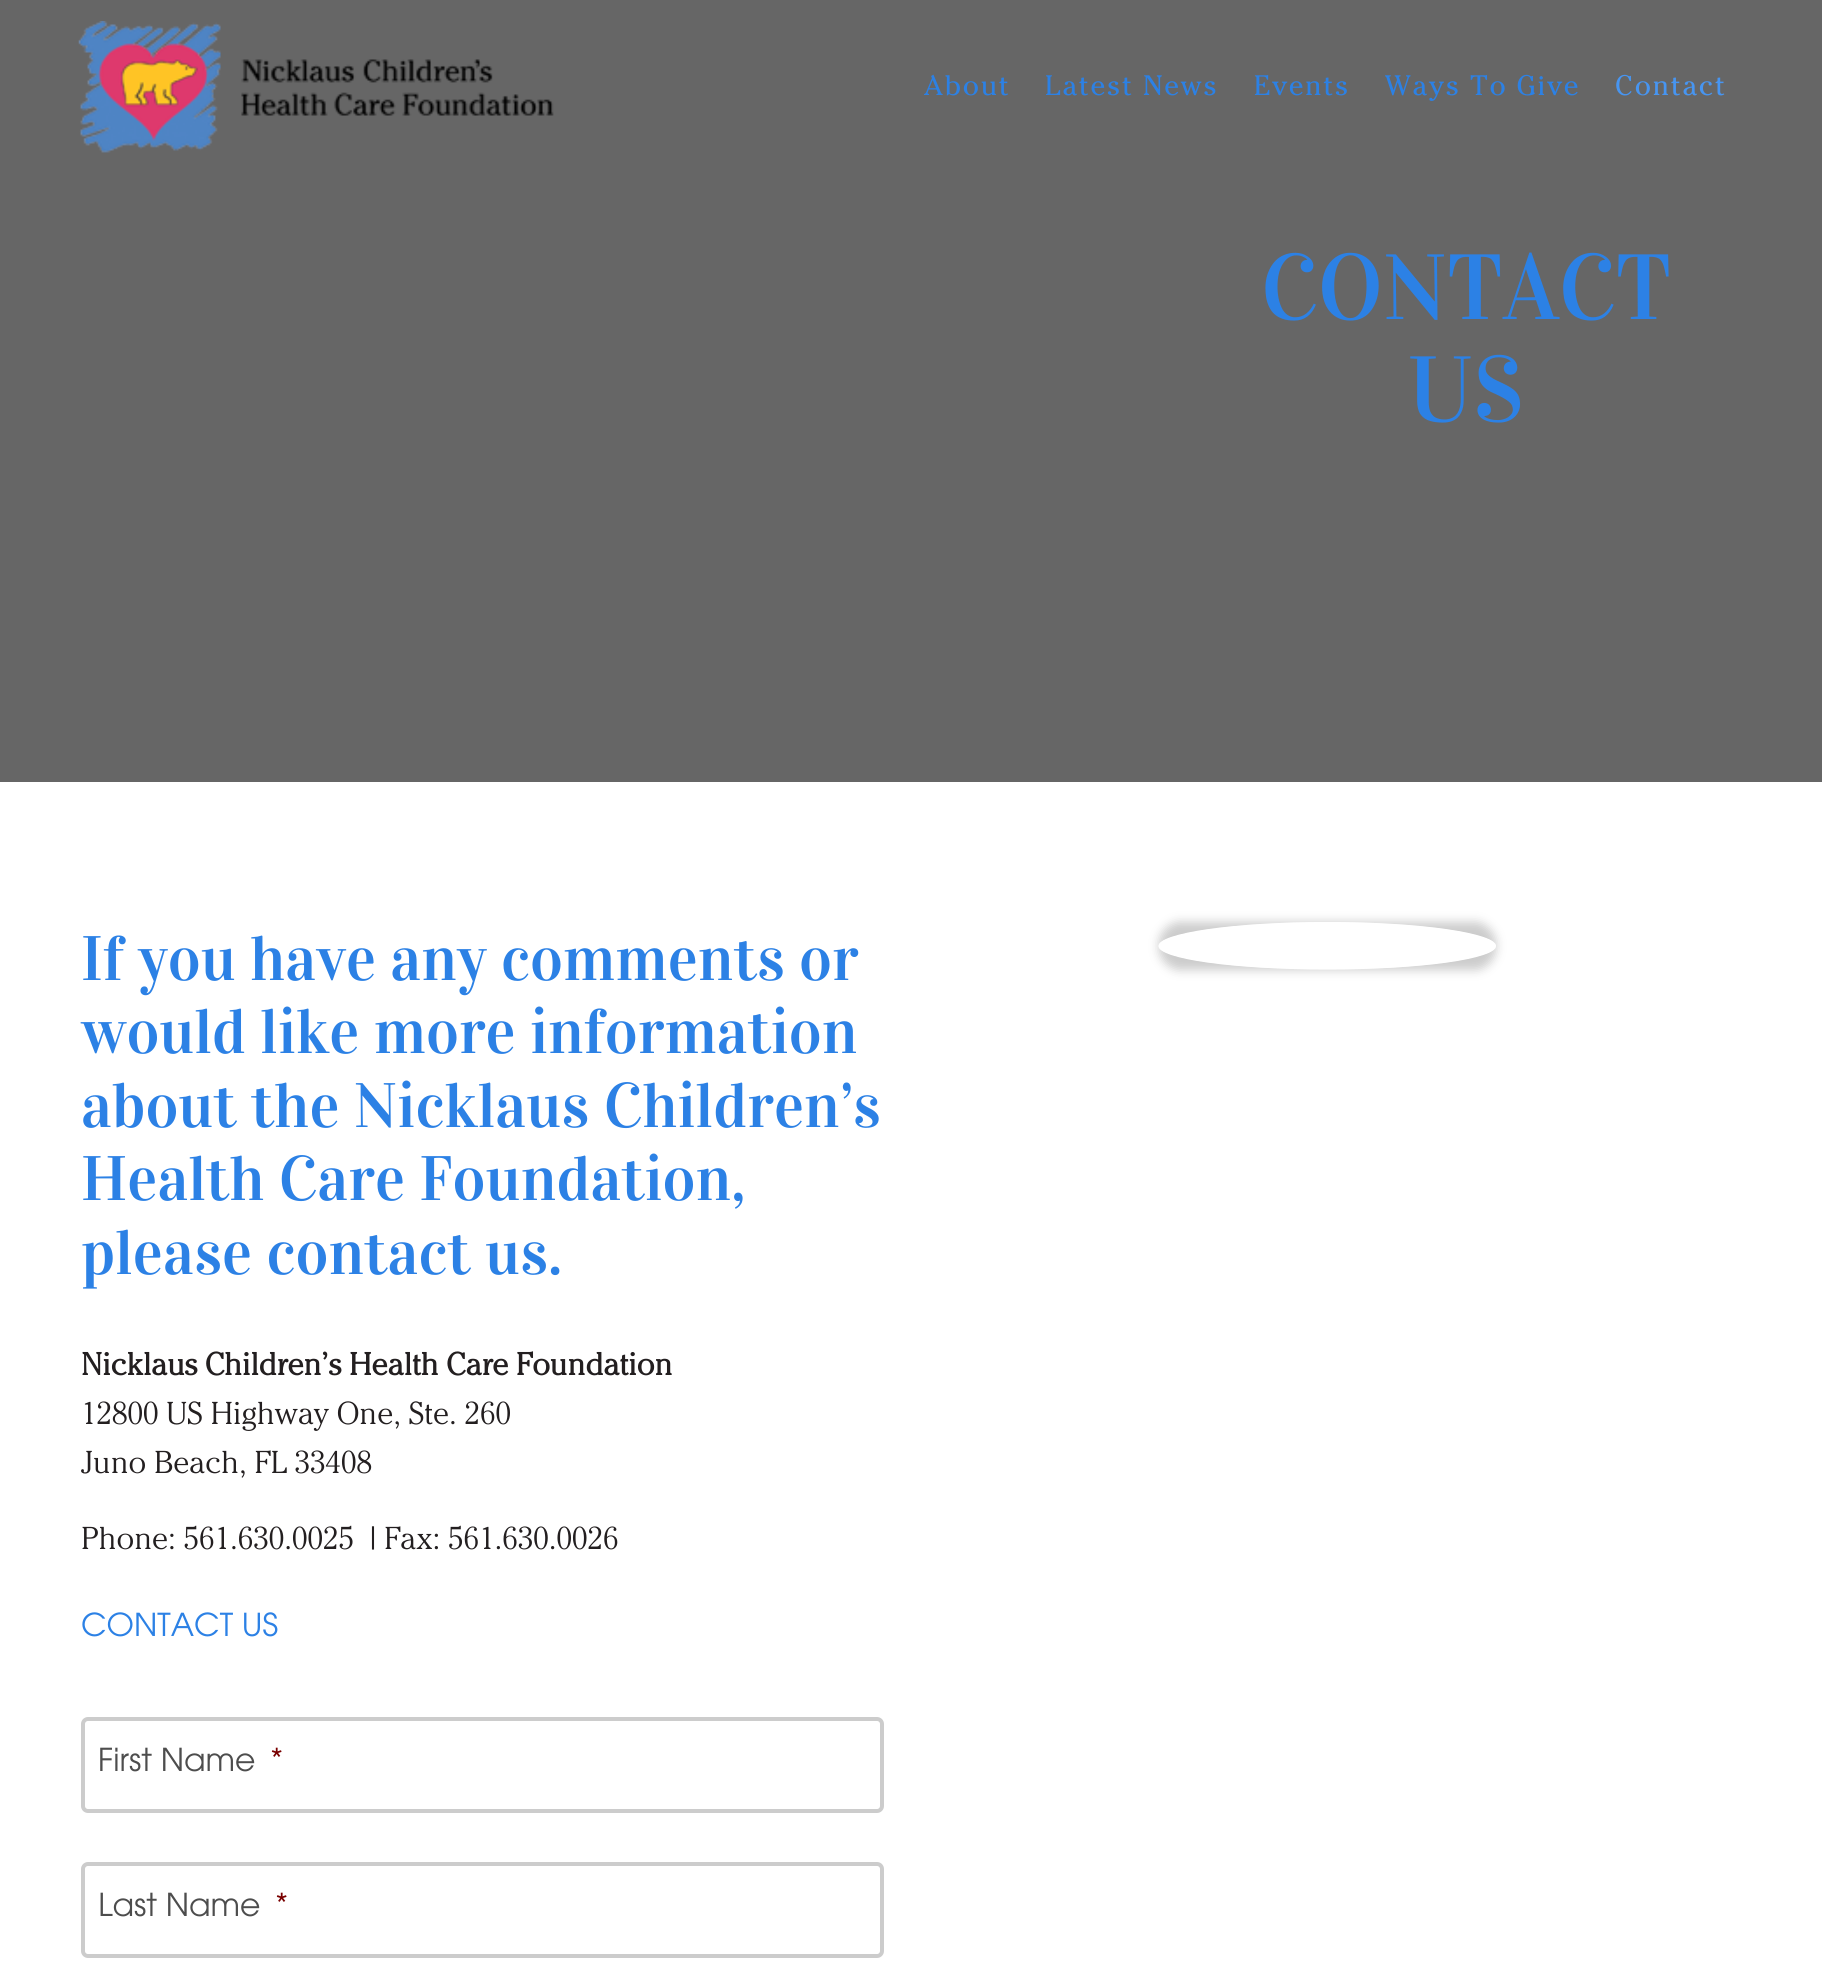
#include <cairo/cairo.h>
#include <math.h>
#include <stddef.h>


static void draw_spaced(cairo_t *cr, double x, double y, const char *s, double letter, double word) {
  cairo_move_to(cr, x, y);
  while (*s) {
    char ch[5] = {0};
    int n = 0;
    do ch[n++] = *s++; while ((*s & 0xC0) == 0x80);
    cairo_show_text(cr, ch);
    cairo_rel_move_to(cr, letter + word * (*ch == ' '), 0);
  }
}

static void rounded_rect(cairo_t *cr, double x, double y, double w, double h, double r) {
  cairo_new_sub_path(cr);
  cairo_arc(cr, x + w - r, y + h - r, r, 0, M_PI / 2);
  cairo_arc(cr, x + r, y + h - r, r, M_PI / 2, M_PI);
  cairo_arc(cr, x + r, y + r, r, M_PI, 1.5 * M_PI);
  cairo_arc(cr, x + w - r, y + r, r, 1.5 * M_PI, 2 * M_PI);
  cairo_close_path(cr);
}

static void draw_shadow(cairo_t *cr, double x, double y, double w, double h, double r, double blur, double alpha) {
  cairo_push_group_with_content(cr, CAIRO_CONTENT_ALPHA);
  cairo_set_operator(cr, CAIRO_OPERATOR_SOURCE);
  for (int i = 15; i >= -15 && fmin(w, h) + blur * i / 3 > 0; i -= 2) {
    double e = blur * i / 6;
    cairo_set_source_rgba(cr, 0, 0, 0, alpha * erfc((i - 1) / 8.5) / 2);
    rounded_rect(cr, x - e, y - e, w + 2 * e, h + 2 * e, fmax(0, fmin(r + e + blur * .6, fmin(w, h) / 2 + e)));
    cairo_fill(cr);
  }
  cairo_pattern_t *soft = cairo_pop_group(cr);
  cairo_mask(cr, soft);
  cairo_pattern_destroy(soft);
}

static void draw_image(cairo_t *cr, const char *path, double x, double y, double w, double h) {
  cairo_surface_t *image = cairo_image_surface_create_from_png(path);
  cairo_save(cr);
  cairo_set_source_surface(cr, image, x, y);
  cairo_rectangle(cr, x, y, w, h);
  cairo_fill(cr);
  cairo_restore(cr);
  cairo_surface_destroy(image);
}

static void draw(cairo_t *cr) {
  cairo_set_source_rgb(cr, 1, 1, 1);
  cairo_paint(cr);
  cairo_set_source_rgb(cr, 102 / 255.0, 102 / 255.0, 102 / 255.0);
  cairo_rectangle(cr, 0, 0, 1822, 782);
  cairo_fill(cr);
  draw_image(cr, "images/1.png", 78, 21, 476, 132);
  rounded_rect(cr, 83, 1719, 799, 92, 5);
  cairo_set_source_rgb(cr, 204 / 255.0, 204 / 255.0, 204 / 255.0);
  cairo_set_line_width(cr, 4);
  cairo_stroke(cr);
  rounded_rect(cr, 83, 1864, 799, 92, 5);
  cairo_stroke(cr);
  cairo_save(cr);
  cairo_set_fill_rule(cr, CAIRO_FILL_RULE_EVEN_ODD);
  cairo_new_path(cr);
  cairo_move_to(cr, 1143, 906);
  cairo_line_to(cr, 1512, 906);
  cairo_line_to(cr, 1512, 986);
  cairo_line_to(cr, 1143, 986);
  cairo_close_path(cr);
  cairo_move_to(cr, 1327.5, 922);
  cairo_curve_to(cr, 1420.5, 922, 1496, 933, 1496, 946);
  cairo_curve_to(cr, 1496, 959, 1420.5, 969.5, 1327.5, 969.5);
  cairo_curve_to(cr, 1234, 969.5, 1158.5, 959, 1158.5, 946);
  cairo_curve_to(cr, 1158.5, 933, 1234, 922, 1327.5, 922);
  cairo_close_path(cr);
  cairo_clip(cr);
  cairo_set_source_rgb(cr, 204 / 255.0, 204 / 255.0, 204 / 255.0);
  draw_shadow(cr, 1159, 922, 337, 48, 24, 5, 1);
  cairo_restore(cr);
  cairo_select_font_face(cr, "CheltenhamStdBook", CAIRO_FONT_SLANT_NORMAL, CAIRO_FONT_WEIGHT_NORMAL);
  cairo_set_font_size(cr, 28);
  cairo_set_source_rgb(cr, 44 / 255.0, 129 / 255.0, 229 / 255.0);
  draw_spaced(cr, 924, 95, "About", 1.75, 0);
  draw_spaced(cr, 1045, 95, "Latest News", 1.75, 0);
  draw_spaced(cr, 1254, 95, "Events", 1.75, 0);
  draw_spaced(cr, 1385, 95, "Ways To Give", 1.75, 0);
  cairo_set_source_rgb(cr, 71 / 255.0, 149 / 255.0, 241 / 255.0);
  draw_spaced(cr, 1615, 95, "Contact", 1.75, 0);
  cairo_select_font_face(cr, "Vidaloka", CAIRO_FONT_SLANT_NORMAL, CAIRO_FONT_WEIGHT_NORMAL);
  cairo_set_font_size(cr, 92.75);
  cairo_set_source_rgb(cr, 44 / 255.0, 129 / 255.0, 229 / 255.0);
  cairo_move_to(cr, 1261, 319);
  cairo_show_text(cr, "CONTACT");
  cairo_move_to(cr, 1408, 421);
  cairo_show_text(cr, "US");
  cairo_set_font_size(cr, 63);
  cairo_move_to(cr, 81, 980);
  cairo_show_text(cr, "If you have any comments or");
  cairo_move_to(cr, 81, 1053);
  cairo_show_text(cr, "would like more information");
  cairo_move_to(cr, 81, 1127);
  cairo_show_text(cr, "about the Nicklaus Children’s");
  cairo_move_to(cr, 81, 1200);
  cairo_show_text(cr, "Health Care Foundation,");
  cairo_move_to(cr, 81, 1274);
  cairo_show_text(cr, "please contact us.");
  cairo_select_font_face(cr, "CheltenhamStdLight", CAIRO_FONT_SLANT_NORMAL, CAIRO_FONT_WEIGHT_BOLD);
  cairo_set_font_size(cr, 31.5);
  cairo_set_source_rgb(cr, 35 / 255.0, 31 / 255.0, 32 / 255.0);
  cairo_move_to(cr, 81, 1375);
  cairo_show_text(cr, "Nicklaus Children’s Health Care Foundation");
  cairo_select_font_face(cr, "CheltenhamStdLight", CAIRO_FONT_SLANT_NORMAL, CAIRO_FONT_WEIGHT_NORMAL);
  cairo_move_to(cr, 81, 1424);
  cairo_show_text(cr, "12800 US Highway One, Ste. 260");
  cairo_move_to(cr, 81, 1473);
  cairo_show_text(cr, "Juno Beach, FL 33408");
  cairo_move_to(cr, 81, 1549);
  cairo_show_text(cr, "Phone: 561.630.0025  | Fax: 561.630.0026");
  cairo_select_font_face(cr, "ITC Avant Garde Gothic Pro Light", CAIRO_FONT_SLANT_NORMAL, CAIRO_FONT_WEIGHT_NORMAL);
  cairo_set_source_rgb(cr, 44 / 255.0, 129 / 255.0, 229 / 255.0);
  cairo_move_to(cr, 81, 1636);
  cairo_show_text(cr, "CONTACT US");
  cairo_set_source_rgb(cr, 77 / 255.0, 77 / 255.0, 77 / 255.0);
  cairo_move_to(cr, 98, 1771);
  cairo_show_text(cr, "First Name");
  cairo_set_source_rgb(cr, 121 / 255.0, 0, 0);
  cairo_move_to(cr, 270, 1771);
  cairo_show_text(cr, "*");
  cairo_set_source_rgb(cr, 77 / 255.0, 77 / 255.0, 77 / 255.0);
  cairo_move_to(cr, 98, 1916);
  cairo_show_text(cr, "Last Name");
  cairo_set_source_rgb(cr, 121 / 255.0, 0, 0);
  cairo_move_to(cr, 275, 1916);
  cairo_show_text(cr, "*");
}

int main(void) {
  cairo_surface_t *surface = cairo_image_surface_create(CAIRO_FORMAT_RGB24, 1822, 1979);
  cairo_t *cr = cairo_create(surface);
  cairo_font_options_t *options = cairo_font_options_create();
  cairo_font_options_set_hint_metrics(options, CAIRO_HINT_METRICS_OFF);
  cairo_font_options_set_hint_style(options, CAIRO_HINT_STYLE_NONE);
  cairo_set_font_options(cr, options);
  cairo_set_miter_limit(cr, 4);
  draw(cr);
  cairo_surface_write_to_png(surface, "out.png");
  cairo_font_options_destroy(options);
  cairo_destroy(cr);
  cairo_surface_destroy(surface);
  return 0;
}
